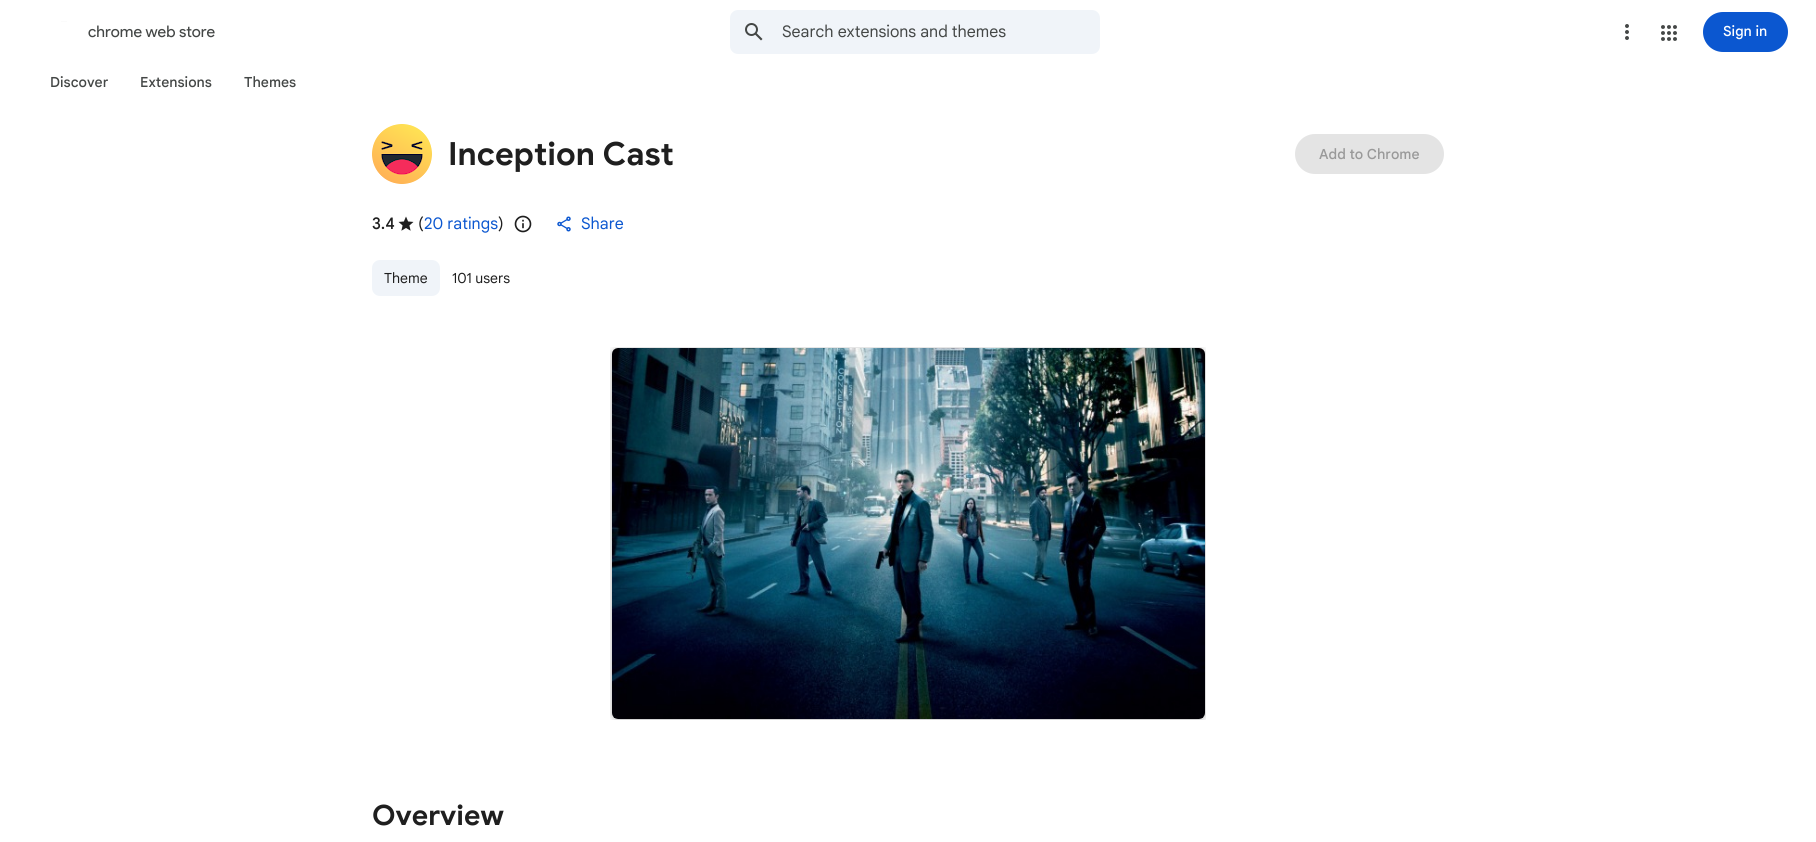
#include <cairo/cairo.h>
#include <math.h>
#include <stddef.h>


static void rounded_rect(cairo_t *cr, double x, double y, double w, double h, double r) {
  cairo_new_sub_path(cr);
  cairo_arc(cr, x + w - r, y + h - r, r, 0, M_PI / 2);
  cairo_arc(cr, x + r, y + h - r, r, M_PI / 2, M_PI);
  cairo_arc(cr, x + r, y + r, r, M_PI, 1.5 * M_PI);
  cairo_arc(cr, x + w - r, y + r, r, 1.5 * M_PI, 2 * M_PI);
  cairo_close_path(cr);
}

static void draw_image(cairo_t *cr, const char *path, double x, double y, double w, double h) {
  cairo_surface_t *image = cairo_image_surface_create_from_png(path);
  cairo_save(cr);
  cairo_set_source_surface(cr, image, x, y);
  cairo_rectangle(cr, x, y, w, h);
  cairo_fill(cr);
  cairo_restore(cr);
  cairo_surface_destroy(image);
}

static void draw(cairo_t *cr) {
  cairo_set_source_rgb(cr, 1, 1, 1);
  cairo_paint(cr);
  draw_image(cr, "images/1.png", 61, 21, 6, 1);
  cairo_set_source_rgb(cr, 240 / 255.0, 244 / 255.0, 249 / 255.0);
  rounded_rect(cr, 730, 10, 370, 44, 8);
  cairo_fill(cr);
  draw_image(cr, "images/2.png", 745, 23, 18, 18);
  draw_image(cr, "images/3.png", 1625, 24, 4, 16);
  draw_image(cr, "images/4.png", 1661, 25, 16, 16);
  cairo_set_source_rgb(cr, 11 / 255.0, 87 / 255.0, 208 / 255.0);
  rounded_rect(cr, 1703, 12, 85, 40, 20);
  cairo_fill(cr);
  draw_image(cr, "images/5.png", 372, 124, 60, 60);
  cairo_set_source_rgb(cr, 228 / 255.0, 228 / 255.0, 228 / 255.0);
  rounded_rect(cr, 1295, 134, 149, 40, 20);
  cairo_fill(cr);
  draw_image(cr, "images/6.png", 398, 216, 16, 15);
  draw_image(cr, "images/7.png", 514, 215, 18, 18);
  draw_image(cr, "images/8.png", 557, 216, 14, 16);
  cairo_set_source_rgb(cr, 240 / 255.0, 244 / 255.0, 249 / 255.0);
  rounded_rect(cr, 372, 260, 68, 36, 8);
  cairo_fill(cr);
  draw_image(cr, "images/9.png", 610, 347, 596, 373);
  cairo_select_font_face(cr, "Product Sans", CAIRO_FONT_SLANT_NORMAL, CAIRO_FONT_WEIGHT_NORMAL);
  cairo_set_font_size(cr, 16);
  cairo_set_source_rgb(cr, 68 / 255.0, 71 / 255.0, 70 / 255.0);
  cairo_move_to(cr, 88, 37);
  cairo_show_text(cr, "chrome web store");
  cairo_select_font_face(cr, "Google Sans", CAIRO_FONT_SLANT_NORMAL, CAIRO_FONT_WEIGHT_NORMAL);
  cairo_move_to(cr, 782, 37);
  cairo_show_text(cr, "Search extensions and themes");
  cairo_select_font_face(cr, "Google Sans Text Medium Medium", CAIRO_FONT_SLANT_NORMAL, CAIRO_FONT_WEIGHT_NORMAL);
  cairo_set_font_size(cr, 14);
  cairo_set_source_rgb(cr, 1, 1, 1);
  cairo_move_to(cr, 1723, 36);
  cairo_show_text(cr, "Sign in");
  cairo_set_source_rgb(cr, 68 / 255.0, 71 / 255.0, 70 / 255.0);
  cairo_move_to(cr, 50, 87);
  cairo_show_text(cr, "Discover");
  cairo_move_to(cr, 140, 87);
  cairo_show_text(cr, "Extensions");
  cairo_move_to(cr, 244, 87);
  cairo_show_text(cr, "Themes");
  cairo_select_font_face(cr, "Google Sans", CAIRO_FONT_SLANT_NORMAL, CAIRO_FONT_WEIGHT_BOLD);
  cairo_set_font_size(cr, 32);
  cairo_set_source_rgb(cr, 31 / 255.0, 31 / 255.0, 31 / 255.0);
  cairo_move_to(cr, 448, 165);
  cairo_show_text(cr, "Inception Cast");
  cairo_select_font_face(cr, "Google Sans Text Medium Medium", CAIRO_FONT_SLANT_NORMAL, CAIRO_FONT_WEIGHT_NORMAL);
  cairo_set_font_size(cr, 14);
  cairo_set_source_rgb(cr, 153 / 255.0, 153 / 255.0, 153 / 255.0);
  cairo_move_to(cr, 1319, 159);
  cairo_show_text(cr, "Add to Chrome");
  cairo_select_font_face(cr, "Google Sans Medium", CAIRO_FONT_SLANT_NORMAL, CAIRO_FONT_WEIGHT_NORMAL);
  cairo_set_font_size(cr, 16);
  cairo_set_source_rgb(cr, 31 / 255.0, 31 / 255.0, 31 / 255.0);
  cairo_move_to(cr, 372, 229);
  cairo_show_text(cr, "3.4");
  cairo_select_font_face(cr, "Google Sans", CAIRO_FONT_SLANT_NORMAL, CAIRO_FONT_WEIGHT_NORMAL);
  cairo_move_to(cr, 418, 229);
  cairo_show_text(cr, "(");
  cairo_set_source_rgb(cr, 11 / 255.0, 87 / 255.0, 208 / 255.0);
  cairo_move_to(cr, 424, 229);
  cairo_show_text(cr, "20 ratings");
  cairo_set_source_rgb(cr, 31 / 255.0, 31 / 255.0, 31 / 255.0);
  cairo_move_to(cr, 498, 229);
  cairo_show_text(cr, ")");
  cairo_select_font_face(cr, "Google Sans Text", CAIRO_FONT_SLANT_NORMAL, CAIRO_FONT_WEIGHT_NORMAL);
  cairo_set_source_rgb(cr, 11 / 255.0, 87 / 255.0, 208 / 255.0);
  cairo_move_to(cr, 581, 229);
  cairo_show_text(cr, "Share");
  cairo_select_font_face(cr, "Google Sans", CAIRO_FONT_SLANT_NORMAL, CAIRO_FONT_WEIGHT_NORMAL);
  cairo_set_font_size(cr, 14);
  cairo_set_source_rgb(cr, 31 / 255.0, 31 / 255.0, 31 / 255.0);
  cairo_move_to(cr, 384, 283);
  cairo_show_text(cr, "Theme");
  cairo_move_to(cr, 452, 283);
  cairo_show_text(cr, "101 users");
  cairo_select_font_face(cr, "Google Sans", CAIRO_FONT_SLANT_NORMAL, CAIRO_FONT_WEIGHT_BOLD);
  cairo_set_font_size(cr, 28);
  cairo_move_to(cr, 372, 825);
  cairo_show_text(cr, "Overview");
}

int main(void) {
  cairo_surface_t *surface = cairo_image_surface_create(CAIRO_FORMAT_RGB24, 1816, 842);
  cairo_t *cr = cairo_create(surface);
  cairo_font_options_t *options = cairo_font_options_create();
  cairo_font_options_set_hint_metrics(options, CAIRO_HINT_METRICS_OFF);
  cairo_font_options_set_hint_style(options, CAIRO_HINT_STYLE_NONE);
  cairo_set_font_options(cr, options);
  cairo_set_miter_limit(cr, 4);
  draw(cr);
  cairo_surface_write_to_png(surface, "out.png");
  cairo_font_options_destroy(options);
  cairo_destroy(cr);
  cairo_surface_destroy(surface);
  return 0;
}
